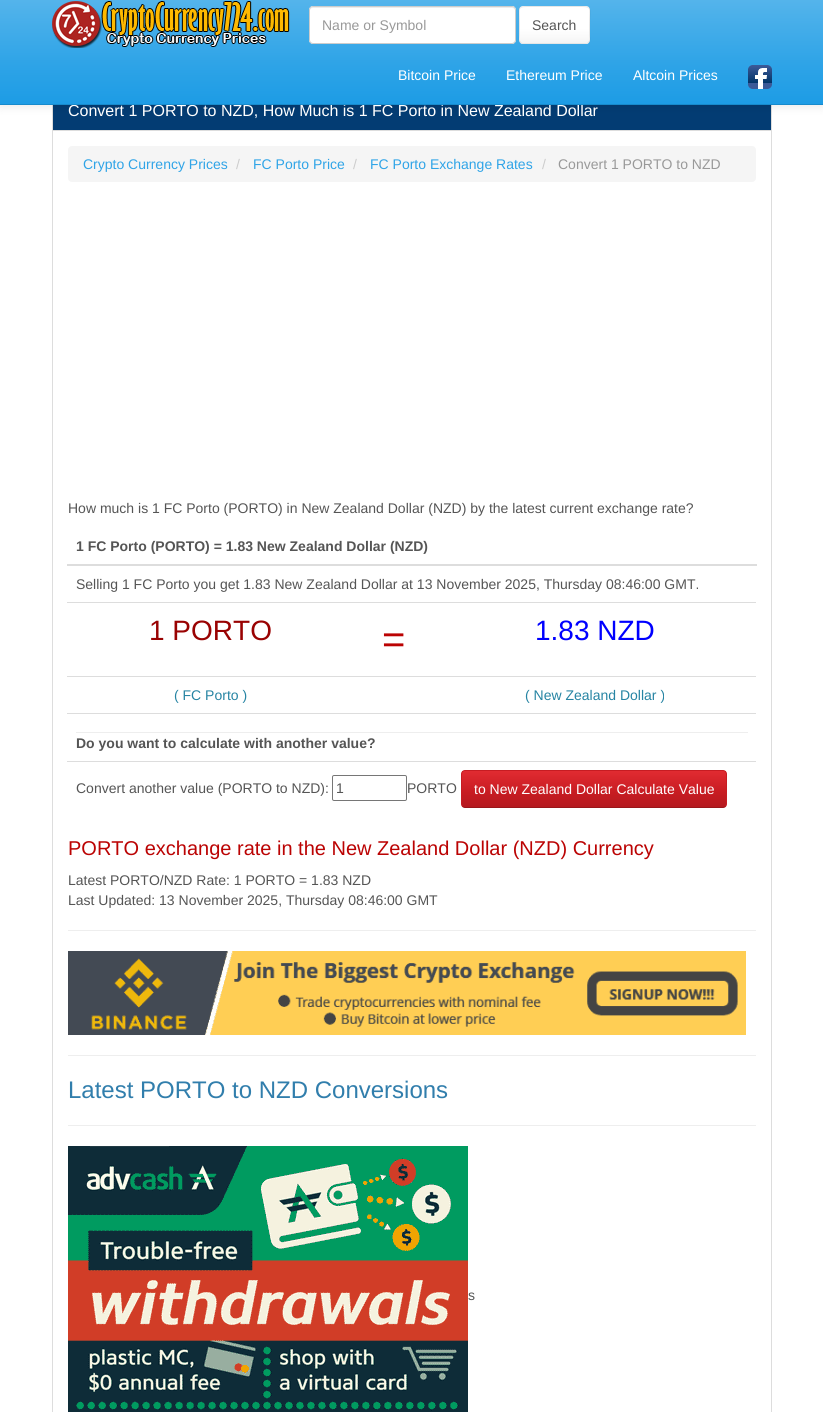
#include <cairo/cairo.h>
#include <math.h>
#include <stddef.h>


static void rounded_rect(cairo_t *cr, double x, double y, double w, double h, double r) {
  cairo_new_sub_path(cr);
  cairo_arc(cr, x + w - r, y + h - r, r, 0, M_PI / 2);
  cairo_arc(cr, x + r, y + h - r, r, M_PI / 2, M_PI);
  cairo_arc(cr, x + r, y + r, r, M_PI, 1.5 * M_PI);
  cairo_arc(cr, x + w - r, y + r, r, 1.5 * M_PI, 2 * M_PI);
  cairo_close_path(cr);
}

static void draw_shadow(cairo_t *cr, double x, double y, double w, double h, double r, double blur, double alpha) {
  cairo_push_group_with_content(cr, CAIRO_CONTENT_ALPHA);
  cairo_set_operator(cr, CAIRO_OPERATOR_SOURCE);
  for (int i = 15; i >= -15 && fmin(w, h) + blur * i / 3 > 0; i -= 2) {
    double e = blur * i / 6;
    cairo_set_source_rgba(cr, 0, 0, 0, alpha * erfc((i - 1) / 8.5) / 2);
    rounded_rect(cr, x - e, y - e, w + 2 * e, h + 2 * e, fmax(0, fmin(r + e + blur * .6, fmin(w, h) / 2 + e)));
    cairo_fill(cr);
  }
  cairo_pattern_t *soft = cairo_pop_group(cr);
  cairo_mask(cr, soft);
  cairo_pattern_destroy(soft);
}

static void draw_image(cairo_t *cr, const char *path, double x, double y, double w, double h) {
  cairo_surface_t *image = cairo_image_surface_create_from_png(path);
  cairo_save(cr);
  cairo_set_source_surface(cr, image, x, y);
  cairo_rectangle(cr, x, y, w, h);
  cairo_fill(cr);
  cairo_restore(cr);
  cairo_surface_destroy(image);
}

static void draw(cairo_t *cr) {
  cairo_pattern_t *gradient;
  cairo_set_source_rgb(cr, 1, 1, 1);
  cairo_paint(cr);
  cairo_rectangle(cr, 52.5, 90.5, 719, 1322);
  cairo_set_source_rgb(cr, 221 / 255.0, 221 / 255.0, 221 / 255.0);
  cairo_set_line_width(cr, 1);
  cairo_stroke(cr);
  cairo_set_source_rgb(cr, 3 / 255.0, 60 / 255.0, 115 / 255.0);
  cairo_rectangle(cr, 53, 105, 718, 25);
  cairo_fill(cr);
  cairo_set_source_rgb(cr, 0, 0, 0);
  draw_shadow(cr, 0, 1, 823, 105, 0, 5, 0.1);
  gradient = cairo_pattern_create_linear(412, 0, 412, 104);
  cairo_pattern_add_color_stop_rgba(gradient, 0, 84 / 255.0, 180 / 255.0, 235 / 255.0, 1);
  cairo_pattern_add_color_stop_rgba(gradient, 0.6, 47 / 255.0, 164 / 255.0, 231 / 255.0, 1);
  cairo_pattern_add_color_stop_rgba(gradient, 1, 29 / 255.0, 156 / 255.0, 229 / 255.0, 1);
  cairo_set_source(cr, gradient);
  cairo_pattern_destroy(gradient);
  cairo_rectangle(cr, 0, 0, 823, 104);
  cairo_fill(cr);
  draw_image(cr, "images/1.png", 52, 1, 238, 47);
  cairo_set_source_rgb(cr, 1, 1, 1);
  rounded_rect(cr, 309, 6, 207, 38, 4);
  cairo_fill(cr);
  cairo_set_source_rgb(cr, 236 / 255.0, 236 / 255.0, 236 / 255.0);
  cairo_new_path(cr);
  cairo_move_to(cr, 313, 8);
  cairo_line_to(cr, 512, 8);
  cairo_curve_to(cr, 514, 8, 515, 9, 515, 11);
  cairo_curve_to(cr, 515, 9, 514, 7, 512, 7);
  cairo_line_to(cr, 313, 7);
  cairo_curve_to(cr, 311, 7, 310, 9, 310, 11);
  cairo_curve_to(cr, 310, 9, 311, 8, 313, 8);
  cairo_close_path(cr);
  cairo_fill(cr);
  rounded_rect(cr, 309.5, 6.5, 206, 37, 3.5);
  cairo_set_source_rgb(cr, 204 / 255.0, 204 / 255.0, 204 / 255.0);
  cairo_stroke(cr);
  cairo_set_source_rgb(cr, 1, 1, 1);
  rounded_rect(cr, 519, 6, 71, 38, 4);
  cairo_fill(cr);
  cairo_save(cr);
  rounded_rect(cr, 519, 6, 71, 38, 4);
  cairo_clip(cr);
  gradient = cairo_pattern_create_linear(555, 7, 555, 43);
  cairo_pattern_add_color_stop_rgba(gradient, 0, 1, 1, 1, 1);
  cairo_pattern_add_color_stop_rgba(gradient, 0.6, 1, 1, 1, 1);
  cairo_pattern_add_color_stop_rgba(gradient, 1, 245 / 255.0, 245 / 255.0, 245 / 255.0, 1);
  cairo_set_source(cr, gradient);
  cairo_pattern_destroy(gradient);
  cairo_rectangle(cr, 520, 7, 69, 36);
  cairo_fill(cr);
  cairo_restore(cr);
  cairo_new_path(cr);
  cairo_move_to(cr, 588.5, 42.5);
  cairo_line_to(cr, 586.5, 43.5);
  cairo_line_to(cr, 522.5, 43.5);
  cairo_line_to(cr, 520.5, 42.5);
  cairo_set_source_rgb(cr, 230 / 255.0, 230 / 255.0, 230 / 255.0);
  cairo_stroke(cr);
  cairo_new_path(cr);
  cairo_move_to(cr, 520.5, 42.5);
  cairo_curve_to(cr, 518.5, 40.5, 519.5, 37, 519.5, 35);
  cairo_line_to(cr, 519.5, 25);
  cairo_curve_to(cr, 519.5, 5.5, 515.5, 6.5, 533.5, 6.5);
  cairo_line_to(cr, 575.5, 6.5);
  cairo_curve_to(cr, 593.5, 6.5, 589.5, 5.5, 589.5, 25);
  cairo_line_to(cr, 589.5, 35);
  cairo_curve_to(cr, 589.5, 37, 590.5, 40.5, 588.5, 42.5);
  cairo_set_source_rgba(cr, 0, 0, 0, 0.1);
  cairo_stroke(cr);
  draw_image(cr, "images/2.png", 748, 65, 24, 24);
  cairo_set_source_rgb(cr, 221 / 255.0, 221 / 255.0, 221 / 255.0);
  cairo_rectangle(cr, 53, 130, 718, 1);
  cairo_fill(cr);
  cairo_set_source_rgb(cr, 245 / 255.0, 245 / 255.0, 245 / 255.0);
  rounded_rect(cr, 68, 146, 688, 36, 4);
  cairo_fill(cr);
  cairo_set_source_rgb(cr, 221 / 255.0, 221 / 255.0, 221 / 255.0);
  cairo_rectangle(cr, 67, 564, 690, 2);
  cairo_fill(cr);
  cairo_rectangle(cr, 67, 602, 689, 1);
  cairo_fill(cr);
  cairo_rectangle(cr, 67, 676, 689, 1);
  cairo_fill(cr);
  cairo_rectangle(cr, 67, 713, 689, 1);
  cairo_fill(cr);
  cairo_set_source_rgb(cr, 238 / 255.0, 238 / 255.0, 238 / 255.0);
  cairo_rectangle(cr, 76, 732, 672, 1);
  cairo_fill(cr);
  cairo_set_source_rgb(cr, 221 / 255.0, 221 / 255.0, 221 / 255.0);
  cairo_rectangle(cr, 67, 761, 689, 1);
  cairo_fill(cr);
  rounded_rect(cr, 332.5, 775.5, 74, 25, 1.5);
  cairo_set_source_rgb(cr, 118 / 255.0, 118 / 255.0, 118 / 255.0);
  cairo_stroke(cr);
  cairo_save(cr);
  rounded_rect(cr, 461, 770, 266, 38, 4);
  cairo_clip(cr);
  gradient = cairo_pattern_create_linear(594, 771, 594, 807);
  cairo_pattern_add_color_stop_rgba(gradient, 0, 225 / 255.0, 43 / 255.0, 49 / 255.0, 1);
  cairo_pattern_add_color_stop_rgba(gradient, 0.6, 199 / 255.0, 28 / 255.0, 34 / 255.0, 1);
  cairo_pattern_add_color_stop_rgba(gradient, 1, 181 / 255.0, 25 / 255.0, 31 / 255.0, 1);
  cairo_set_source(cr, gradient);
  cairo_pattern_destroy(gradient);
  cairo_rectangle(cr, 462, 771, 264, 36);
  cairo_fill(cr);
  cairo_restore(cr);
  cairo_new_path(cr);
  cairo_move_to(cr, 725.5, 806.5);
  cairo_curve_to(cr, 725, 807, 724, 807.5, 723, 807.5);
  cairo_line_to(cr, 465, 807.5);
  cairo_curve_to(cr, 464, 807.5, 463, 807, 462.5, 806.5);
  cairo_set_source_rgb(cr, 154 / 255.0, 22 / 255.0, 26 / 255.0);
  cairo_stroke(cr);
  cairo_new_path(cr);
  cairo_move_to(cr, 462.5, 806.5);
  cairo_curve_to(cr, 462, 806, 461.5, 805, 461.5, 804);
  cairo_line_to(cr, 461.5, 774);
  cairo_curve_to(cr, 461.5, 773, 462, 772, 462.5, 771.5);
  cairo_curve_to(cr, 463, 771, 464, 770.5, 465, 770.5);
  cairo_line_to(cr, 723, 770.5);
  cairo_curve_to(cr, 724, 770.5, 725, 771, 725.5, 771.5);
  cairo_curve_to(cr, 726, 772, 726.5, 773, 726.5, 774);
  cairo_line_to(cr, 726.5, 804);
  cairo_curve_to(cr, 726.5, 805, 726, 806, 725.5, 806.5);
  cairo_set_source_rgb(cr, 199 / 255.0, 28 / 255.0, 34 / 255.0);
  cairo_stroke(cr);
  cairo_set_source_rgb(cr, 238 / 255.0, 238 / 255.0, 238 / 255.0);
  cairo_rectangle(cr, 68, 930, 688, 1);
  cairo_fill(cr);
  draw_image(cr, "images/3.png", 68, 951, 678, 84);
  cairo_rectangle(cr, 68, 1055, 688, 1);
  cairo_fill(cr);
  cairo_rectangle(cr, 68, 1125, 688, 1);
  cairo_fill(cr);
  draw_image(cr, "images/4.png", 68, 1146, 400, 266);
  cairo_select_font_face(cr, "Liberation Sans", CAIRO_FONT_SLANT_NORMAL, CAIRO_FONT_WEIGHT_NORMAL);
  cairo_set_font_size(cr, 14);
  cairo_set_source_rgb(cr, 153 / 255.0, 153 / 255.0, 153 / 255.0);
  cairo_move_to(cr, 322, 30);
  cairo_show_text(cr, "Name or Symbol");
  cairo_set_source_rgb(cr, 85 / 255.0, 85 / 255.0, 85 / 255.0);
  cairo_move_to(cr, 532, 30);
  cairo_show_text(cr, "Search");
  cairo_set_source_rgb(cr, 1, 1, 1);
  cairo_move_to(cr, 398, 80);
  cairo_show_text(cr, "Bitcoin Price");
  cairo_move_to(cr, 506, 80);
  cairo_show_text(cr, "Ethereum Price");
  cairo_move_to(cr, 633, 80);
  cairo_show_text(cr, "Altcoin Prices");
  cairo_set_font_size(cr, 16);
  cairo_move_to(cr, 68, 116);
  cairo_show_text(cr, "Convert 1 PORTO to NZD, How Much is 1 FC Porto in New Zealand Dollar");
  cairo_set_source_rgb(cr, 23 / 255.0, 138 / 255.0, 204 / 255.0);
  cairo_rectangle(cr, 0, 104, 823, 1);
  cairo_fill(cr);
  cairo_set_font_size(cr, 14);
  cairo_set_source_rgb(cr, 47 / 255.0, 164 / 255.0, 231 / 255.0);
  cairo_move_to(cr, 83, 169);
  cairo_show_text(cr, "Crypto Currency Prices");
  cairo_set_source_rgb(cr, 204 / 255.0, 204 / 255.0, 204 / 255.0);
  cairo_move_to(cr, 236, 169);
  cairo_show_text(cr, "/");
  cairo_set_source_rgb(cr, 47 / 255.0, 164 / 255.0, 231 / 255.0);
  cairo_move_to(cr, 253, 169);
  cairo_show_text(cr, "FC Porto Price");
  cairo_set_source_rgb(cr, 204 / 255.0, 204 / 255.0, 204 / 255.0);
  cairo_move_to(cr, 353, 169);
  cairo_show_text(cr, "/");
  cairo_set_source_rgb(cr, 47 / 255.0, 164 / 255.0, 231 / 255.0);
  cairo_move_to(cr, 370, 169);
  cairo_show_text(cr, "FC Porto Exchange Rates");
  cairo_set_source_rgb(cr, 204 / 255.0, 204 / 255.0, 204 / 255.0);
  cairo_move_to(cr, 542, 169);
  cairo_show_text(cr, "/");
  cairo_set_source_rgb(cr, 153 / 255.0, 153 / 255.0, 153 / 255.0);
  cairo_move_to(cr, 558, 169);
  cairo_show_text(cr, "Convert 1 PORTO to NZD");
  cairo_set_source_rgb(cr, 85 / 255.0, 85 / 255.0, 85 / 255.0);
  cairo_move_to(cr, 68, 513);
  cairo_show_text(cr, "How much is 1 FC Porto (PORTO) in New Zealand Dollar (NZD) by the latest current exchange rate?");
  cairo_select_font_face(cr, "Liberation Sans", CAIRO_FONT_SLANT_NORMAL, CAIRO_FONT_WEIGHT_BOLD);
  cairo_move_to(cr, 76, 551);
  cairo_show_text(cr, "1 FC Porto (PORTO) = 1.83 New Zealand Dollar (NZD)");
  cairo_select_font_face(cr, "Liberation Sans", CAIRO_FONT_SLANT_NORMAL, CAIRO_FONT_WEIGHT_NORMAL);
  cairo_move_to(cr, 76, 589);
  cairo_show_text(cr, "Selling 1 FC Porto you get 1.83 New Zealand Dollar at 13 November 2025, Thursday 08:46:00 GMT.");
  cairo_set_font_size(cr, 28);
  cairo_set_source_rgb(cr, 153 / 255.0, 2 / 255.0, 2 / 255.0);
  cairo_move_to(cr, 149, 640);
  cairo_show_text(cr, "1 PORTO");
  cairo_set_font_size(cr, 40);
  cairo_set_source_rgb(cr, 187 / 255.0, 3 / 255.0, 3 / 255.0);
  cairo_move_to(cr, 382, 653);
  cairo_show_text(cr, "=");
  cairo_set_font_size(cr, 28);
  cairo_set_source_rgb(cr, 0, 0, 1);
  cairo_move_to(cr, 535, 640);
  cairo_show_text(cr, "1.83 NZD");
  cairo_set_font_size(cr, 14);
  cairo_set_source_rgb(cr, 38 / 255.0, 132 / 255.0, 163 / 255.0);
  cairo_move_to(cr, 174, 700);
  cairo_show_text(cr, "( FC Porto )");
  cairo_move_to(cr, 525, 700);
  cairo_show_text(cr, "( New Zealand Dollar )");
  cairo_select_font_face(cr, "Liberation Sans", CAIRO_FONT_SLANT_NORMAL, CAIRO_FONT_WEIGHT_BOLD);
  cairo_set_source_rgb(cr, 85 / 255.0, 85 / 255.0, 85 / 255.0);
  cairo_move_to(cr, 76, 748);
  cairo_show_text(cr, "Do you want to calculate with another value?");
  cairo_select_font_face(cr, "Liberation Sans", CAIRO_FONT_SLANT_NORMAL, CAIRO_FONT_WEIGHT_NORMAL);
  cairo_move_to(cr, 76, 793);
  cairo_show_text(cr, "Convert another value (PORTO to NZD):");
  cairo_move_to(cr, 336, 793);
  cairo_show_text(cr, "1");
  cairo_move_to(cr, 407, 793);
  cairo_show_text(cr, "PORTO");
  cairo_set_source_rgb(cr, 1, 1, 1);
  cairo_move_to(cr, 474, 794);
  cairo_show_text(cr, "to New Zealand Dollar Calculate Value");
  cairo_set_font_size(cr, 20);
  cairo_set_source_rgb(cr, 187 / 255.0, 3 / 255.0, 3 / 255.0);
  cairo_move_to(cr, 68, 855);
  cairo_show_text(cr, "PORTO exchange rate in the New Zealand Dollar (NZD) Currency");
  cairo_set_font_size(cr, 14);
  cairo_set_source_rgb(cr, 85 / 255.0, 85 / 255.0, 85 / 255.0);
  cairo_move_to(cr, 68, 885);
  cairo_show_text(cr, "Latest PORTO/NZD Rate: 1 PORTO = 1.83 NZD");
  cairo_move_to(cr, 68, 905);
  cairo_show_text(cr, "Last Updated: 13 November 2025, Thursday 08:46:00 GMT");
  cairo_set_font_size(cr, 24);
  cairo_set_source_rgb(cr, 49 / 255.0, 126 / 255.0, 172 / 255.0);
  cairo_move_to(cr, 68, 1098);
  cairo_show_text(cr, "Latest PORTO to NZD Conversions");
  cairo_set_font_size(cr, 14);
  cairo_set_source_rgb(cr, 85 / 255.0, 85 / 255.0, 85 / 255.0);
  cairo_move_to(cr, 468, 1300);
  cairo_show_text(cr, "s");
}

int main(void) {
  cairo_surface_t *surface = cairo_image_surface_create(CAIRO_FORMAT_RGB24, 823, 1412);
  cairo_t *cr = cairo_create(surface);
  cairo_font_options_t *options = cairo_font_options_create();
  cairo_font_options_set_hint_metrics(options, CAIRO_HINT_METRICS_OFF);
  cairo_font_options_set_hint_style(options, CAIRO_HINT_STYLE_NONE);
  cairo_set_font_options(cr, options);
  cairo_set_miter_limit(cr, 4);
  draw(cr);
  cairo_surface_write_to_png(surface, "out.png");
  cairo_font_options_destroy(options);
  cairo_destroy(cr);
  cairo_surface_destroy(surface);
  return 0;
}
